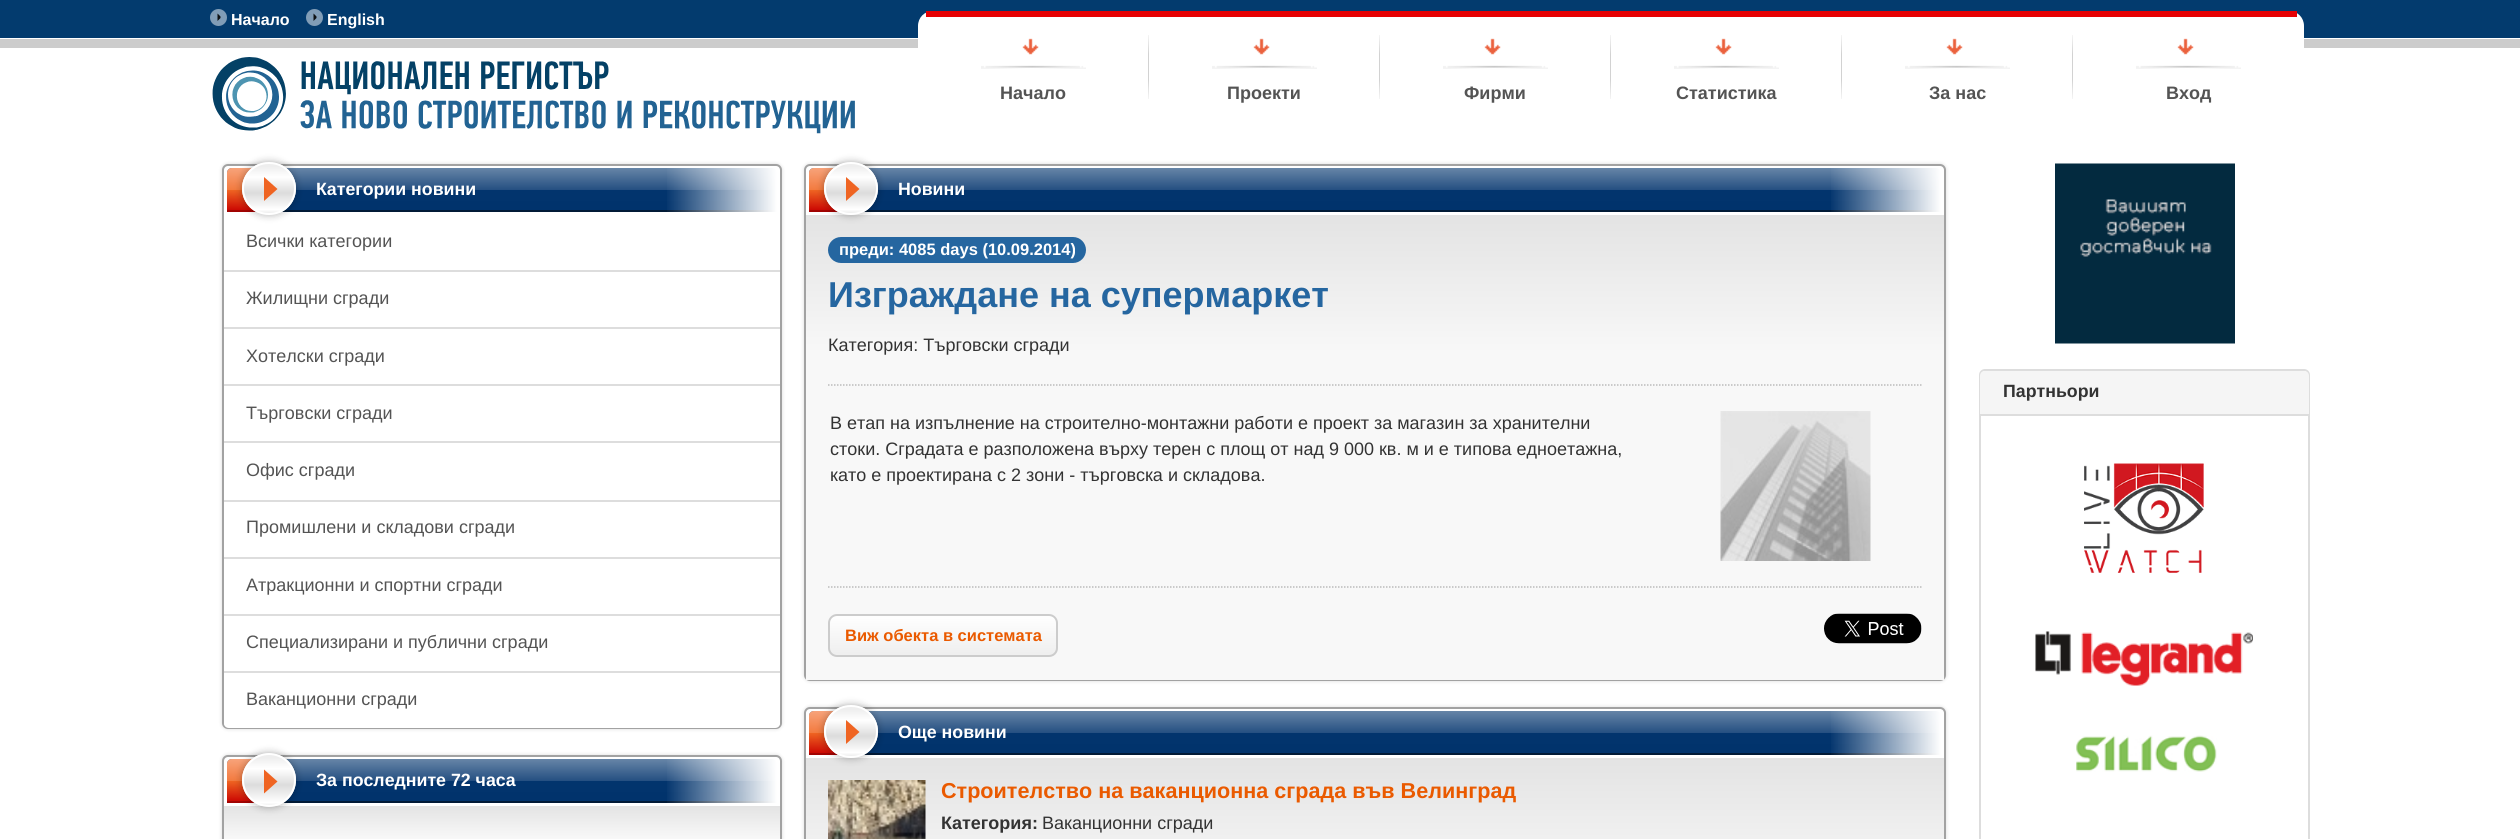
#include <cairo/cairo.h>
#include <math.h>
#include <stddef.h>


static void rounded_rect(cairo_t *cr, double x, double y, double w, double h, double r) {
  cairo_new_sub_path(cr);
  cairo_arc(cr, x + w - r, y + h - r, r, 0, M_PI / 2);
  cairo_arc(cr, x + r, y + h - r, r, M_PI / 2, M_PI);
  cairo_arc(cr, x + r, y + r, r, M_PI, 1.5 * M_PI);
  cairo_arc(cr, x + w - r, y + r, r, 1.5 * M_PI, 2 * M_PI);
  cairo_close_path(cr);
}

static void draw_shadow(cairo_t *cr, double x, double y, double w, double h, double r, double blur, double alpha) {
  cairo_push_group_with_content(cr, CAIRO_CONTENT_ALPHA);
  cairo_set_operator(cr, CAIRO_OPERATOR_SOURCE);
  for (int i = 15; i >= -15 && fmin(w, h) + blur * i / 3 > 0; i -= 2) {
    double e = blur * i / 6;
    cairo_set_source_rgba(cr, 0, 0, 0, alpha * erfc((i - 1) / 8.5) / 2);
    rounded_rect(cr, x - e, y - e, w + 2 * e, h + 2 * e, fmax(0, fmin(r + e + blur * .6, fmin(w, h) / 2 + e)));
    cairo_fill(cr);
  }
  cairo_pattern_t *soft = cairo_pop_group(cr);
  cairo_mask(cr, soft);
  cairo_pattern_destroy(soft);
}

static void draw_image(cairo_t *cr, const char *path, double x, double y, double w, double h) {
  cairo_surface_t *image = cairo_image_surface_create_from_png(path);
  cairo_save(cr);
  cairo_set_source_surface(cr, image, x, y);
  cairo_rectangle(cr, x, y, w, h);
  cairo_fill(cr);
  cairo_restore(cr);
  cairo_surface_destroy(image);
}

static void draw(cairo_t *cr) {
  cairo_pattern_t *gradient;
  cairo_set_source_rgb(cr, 1, 1, 1);
  cairo_paint(cr);
  cairo_set_source_rgb(cr, 3 / 255.0, 59 / 255.0, 110 / 255.0);
  cairo_rectangle(cr, 0, 0, 2520, 38);
  cairo_fill(cr);
  cairo_rectangle(cr, -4.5, -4.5, 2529, 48);
  cairo_set_source_rgb(cr, 204 / 255.0, 204 / 255.0, 204 / 255.0);
  cairo_set_line_width(cr, 9);
  cairo_stroke(cr);
  cairo_set_source_rgb(cr, 129 / 255.0, 157 / 255.0, 183 / 255.0);
  cairo_arc(cr, 218.5, 17.5, 8.5, 0, 2 * M_PI);
  cairo_fill(cr);
  cairo_set_source_rgb(cr, 13 / 255.0, 16 / 255.0, 18 / 255.0);
  cairo_new_path(cr);
  cairo_move_to(cr, 217.5, 21);
  cairo_line_to(cr, 217.5, 13.5);
  cairo_line_to(cr, 220.5, 16.5);
  cairo_line_to(cr, 220.5, 18);
  cairo_close_path(cr);
  cairo_fill(cr);
  cairo_set_source_rgb(cr, 129 / 255.0, 157 / 255.0, 183 / 255.0);
  cairo_arc(cr, 314.5, 17.5, 8.5, 0, 2 * M_PI);
  cairo_fill(cr);
  cairo_set_source_rgb(cr, 13 / 255.0, 16 / 255.0, 18 / 255.0);
  cairo_new_path(cr);
  cairo_move_to(cr, 313.5, 21);
  cairo_line_to(cr, 313.5, 13.5);
  cairo_line_to(cr, 316.5, 16.5);
  cairo_line_to(cr, 316.5, 18);
  cairo_close_path(cr);
  cairo_fill(cr);
  draw_image(cr, "images/1.png", 212, 57, 643, 77);
  cairo_set_source_rgb(cr, 1, 1, 1);
  cairo_new_path(cr);
  cairo_move_to(cr, 933, 11);
  cairo_line_to(cr, 1149, 11);
  cairo_line_to(cr, 1149, 114);
  cairo_line_to(cr, 918, 114);
  cairo_line_to(cr, 918, 26);
  cairo_curve_to(cr, 918, 17.5, 924.5, 11, 933, 11);
  cairo_close_path(cr);
  cairo_fill(cr);
  draw_image(cr, "images/2.png", 981, 38, 105, 31);
  cairo_set_source_rgb(cr, 230 / 255.0, 0, 3 / 255.0);
  cairo_rectangle(cr, 926, 11, 1147, 6);
  cairo_fill(cr);
  gradient = cairo_pattern_create_linear(1148, 35, 1148, 99);
  cairo_pattern_add_color_stop_rgba(gradient, 0, 245 / 255.0, 245 / 255.0, 245 / 255.0, 1);
  cairo_pattern_add_color_stop_rgba(gradient, 0.3, 210 / 255.0, 210 / 255.0, 210 / 255.0, 1);
  cairo_pattern_add_color_stop_rgba(gradient, 0.7, 210 / 255.0, 210 / 255.0, 210 / 255.0, 1);
  cairo_pattern_add_color_stop_rgba(gradient, 1, 245 / 255.0, 245 / 255.0, 245 / 255.0, 1);
  cairo_set_source(cr, gradient);
  cairo_pattern_destroy(gradient);
  cairo_rectangle(cr, 1148, 35, 1, 64);
  cairo_fill(cr);
  cairo_set_source_rgb(cr, 1, 1, 1);
  cairo_rectangle(cr, 1149, 17, 924, 31);
  cairo_fill(cr);
  draw_image(cr, "images/3.png", 1212, 38, 105, 31);
  gradient = cairo_pattern_create_linear(1379, 35, 1379, 99);
  cairo_pattern_add_color_stop_rgba(gradient, 0, 245 / 255.0, 245 / 255.0, 245 / 255.0, 1);
  cairo_pattern_add_color_stop_rgba(gradient, 0.3, 210 / 255.0, 210 / 255.0, 210 / 255.0, 1);
  cairo_pattern_add_color_stop_rgba(gradient, 0.7, 210 / 255.0, 210 / 255.0, 210 / 255.0, 1);
  cairo_pattern_add_color_stop_rgba(gradient, 1, 245 / 255.0, 245 / 255.0, 245 / 255.0, 1);
  cairo_set_source(cr, gradient);
  cairo_pattern_destroy(gradient);
  cairo_rectangle(cr, 1379, 35, 1, 64);
  cairo_fill(cr);
  draw_image(cr, "images/4.png", 1443, 38, 105, 31);
  gradient = cairo_pattern_create_linear(1610, 35, 1610, 99);
  cairo_pattern_add_color_stop_rgba(gradient, 0, 245 / 255.0, 245 / 255.0, 245 / 255.0, 1);
  cairo_pattern_add_color_stop_rgba(gradient, 0.3, 210 / 255.0, 210 / 255.0, 210 / 255.0, 1);
  cairo_pattern_add_color_stop_rgba(gradient, 0.7, 210 / 255.0, 210 / 255.0, 210 / 255.0, 1);
  cairo_pattern_add_color_stop_rgba(gradient, 1, 245 / 255.0, 245 / 255.0, 245 / 255.0, 1);
  cairo_set_source(cr, gradient);
  cairo_pattern_destroy(gradient);
  cairo_rectangle(cr, 1610, 35, 1, 64);
  cairo_fill(cr);
  draw_image(cr, "images/2.png", 1674, 38, 105, 31);
  gradient = cairo_pattern_create_linear(1841, 35, 1841, 99);
  cairo_pattern_add_color_stop_rgba(gradient, 0, 245 / 255.0, 245 / 255.0, 245 / 255.0, 1);
  cairo_pattern_add_color_stop_rgba(gradient, 0.3, 210 / 255.0, 210 / 255.0, 210 / 255.0, 1);
  cairo_pattern_add_color_stop_rgba(gradient, 0.7, 210 / 255.0, 210 / 255.0, 210 / 255.0, 1);
  cairo_pattern_add_color_stop_rgba(gradient, 1, 245 / 255.0, 245 / 255.0, 245 / 255.0, 1);
  cairo_set_source(cr, gradient);
  cairo_pattern_destroy(gradient);
  cairo_rectangle(cr, 1841, 35, 1, 64);
  cairo_fill(cr);
  draw_image(cr, "images/5.png", 1905, 38, 105, 31);
  gradient = cairo_pattern_create_linear(2072, 35, 2072, 99);
  cairo_pattern_add_color_stop_rgba(gradient, 0, 245 / 255.0, 245 / 255.0, 245 / 255.0, 1);
  cairo_pattern_add_color_stop_rgba(gradient, 0.3, 210 / 255.0, 210 / 255.0, 210 / 255.0, 1);
  cairo_pattern_add_color_stop_rgba(gradient, 0.7, 210 / 255.0, 210 / 255.0, 210 / 255.0, 1);
  cairo_pattern_add_color_stop_rgba(gradient, 1, 245 / 255.0, 245 / 255.0, 245 / 255.0, 1);
  cairo_set_source(cr, gradient);
  cairo_pattern_destroy(gradient);
  cairo_rectangle(cr, 2072, 35, 1, 64);
  cairo_fill(cr);
  cairo_set_source_rgb(cr, 1, 1, 1);
  cairo_new_path(cr);
  cairo_move_to(cr, 2073, 11);
  cairo_line_to(cr, 2289, 11);
  cairo_curve_to(cr, 2297.5, 11, 2304, 17.5, 2304, 26);
  cairo_line_to(cr, 2304, 114);
  cairo_line_to(cr, 2073, 114);
  cairo_close_path(cr);
  cairo_fill(cr);
  draw_image(cr, "images/2.png", 2136, 38, 105, 31);
  cairo_set_source_rgb(cr, 230 / 255.0, 0, 3 / 255.0);
  cairo_rectangle(cr, 2073, 11, 224, 6);
  cairo_fill(cr);
  cairo_set_source_rgb(cr, 0, 0, 0);
  draw_shadow(cr, 222, 164, 560, 565, 6, 2, 0.15);
  cairo_set_source_rgb(cr, 1, 1, 1);
  rounded_rect(cr, 223, 165, 558, 563, 5);
  cairo_fill_preserve(cr);
  cairo_set_source_rgb(cr, 162 / 255.0, 162 / 255.0, 162 / 255.0);
  cairo_set_line_width(cr, 2);
  cairo_stroke(cr);
  gradient = cairo_pattern_create_linear(502, 168, 502, 212);
  cairo_pattern_add_color_stop_rgba(gradient, 0, 103 / 255.0, 133 / 255.0, 167 / 255.0, 1);
  cairo_pattern_add_color_stop_rgba(gradient, 0.5, 36 / 255.0, 79 / 255.0, 129 / 255.0, 1);
  cairo_pattern_add_color_stop_rgba(gradient, 0.5, 2 / 255.0, 52 / 255.0, 109 / 255.0, 1);
  cairo_pattern_add_color_stop_rgba(gradient, 1, 1 / 255.0, 51 / 255.0, 108 / 255.0, 1);
  cairo_set_source(cr, gradient);
  cairo_pattern_destroy(gradient);
  cairo_new_path(cr);
  cairo_move_to(cr, 232, 168);
  cairo_line_to(cr, 772, 168);
  cairo_curve_to(cr, 775, 168, 777, 170, 777, 173);
  cairo_line_to(cr, 777, 212);
  cairo_line_to(cr, 227, 212);
  cairo_line_to(cr, 227, 173);
  cairo_curve_to(cr, 227, 170, 229, 168, 232, 168);
  cairo_close_path(cr);
  cairo_fill(cr);
  cairo_set_source_rgb(cr, 1 / 255.0, 26 / 255.0, 54 / 255.0);
  cairo_rectangle(cr, 281, 210, 496, 2);
  cairo_fill(cr);
  gradient = cairo_pattern_create_linear(249, 168, 249, 212);
  cairo_pattern_add_color_stop_rgba(gradient, 0, 247 / 255.0, 163 / 255.0, 122 / 255.0, 1);
  cairo_pattern_add_color_stop_rgba(gradient, 0.5, 243 / 255.0, 122 / 255.0, 63 / 255.0, 1);
  cairo_pattern_add_color_stop_rgba(gradient, 0.5, 239 / 255.0, 100 / 255.0, 34 / 255.0, 1);
  cairo_pattern_add_color_stop_rgba(gradient, 1, 200 / 255.0, 0, 0, 1);
  cairo_set_source(cr, gradient);
  cairo_pattern_destroy(gradient);
  cairo_new_path(cr);
  cairo_move_to(cr, 232, 168);
  cairo_line_to(cr, 272, 168);
  cairo_line_to(cr, 272, 212);
  cairo_line_to(cr, 227, 212);
  cairo_line_to(cr, 227, 173);
  cairo_curve_to(cr, 227, 170, 229, 168, 232, 168);
  cairo_close_path(cr);
  cairo_fill(cr);
  gradient = cairo_pattern_create_linear(249, 168, 249, 212);
  cairo_pattern_add_color_stop_rgba(gradient, 0, 198 / 255.0, 130 / 255.0, 98 / 255.0, 1);
  cairo_pattern_add_color_stop_rgba(gradient, 0.5, 194 / 255.0, 98 / 255.0, 50 / 255.0, 1);
  cairo_pattern_add_color_stop_rgba(gradient, 0.5, 191 / 255.0, 80 / 255.0, 27 / 255.0, 1);
  cairo_pattern_add_color_stop_rgba(gradient, 1, 160 / 255.0, 0, 0, 1);
  cairo_set_source(cr, gradient);
  cairo_pattern_destroy(gradient);
  cairo_rectangle(cr, 227, 210, 30, 2);
  cairo_fill(cr);
  cairo_set_source_rgb(cr, 0, 0, 0);
  draw_shadow(cr, 242, 162, 54, 53, 26.5, 4, 0.3);
  cairo_save(cr);
  rounded_rect(cr, 242, 162, 54, 53, 26.5);
  cairo_clip(cr);
  gradient = cairo_pattern_create_linear(269, 164, 269, 213);
  cairo_pattern_add_color_stop_rgba(gradient, 0.05, 238 / 255.0, 238 / 255.0, 238 / 255.0, 1);
  cairo_pattern_add_color_stop_rgba(gradient, 0.27, 1, 1, 1, 1);
  cairo_pattern_add_color_stop_rgba(gradient, 0.59, 220 / 255.0, 220 / 255.0, 220 / 255.0, 1);
  cairo_pattern_add_color_stop_rgba(gradient, 0.93, 1, 1, 1, 1);
  cairo_pattern_add_color_stop_rgba(gradient, 1, 238 / 255.0, 238 / 255.0, 238 / 255.0, 1);
  cairo_set_source(cr, gradient);
  cairo_pattern_destroy(gradient);
  cairo_rectangle(cr, 242, 164, 54, 49);
  cairo_fill(cr);
  cairo_restore(cr);
  rounded_rect(cr, 243, 163, 52, 51, 25.5);
  cairo_set_source_rgb(cr, 1, 1, 1);
  cairo_stroke(cr);
  cairo_set_source_rgb(cr, 239 / 255.0, 100 / 255.0, 34 / 255.0);
  cairo_new_path(cr);
  cairo_move_to(cr, 264, 201);
  cairo_line_to(cr, 264, 177);
  cairo_line_to(cr, 277.5, 189);
  cairo_close_path(cr);
  cairo_fill(cr);
  gradient = cairo_pattern_create_linear(665, 190, 777, 190);
  cairo_pattern_add_color_stop_rgba(gradient, 0, 1, 1, 1, 0);
  cairo_pattern_add_color_stop_rgba(gradient, 1, 1, 1, 1, 1);
  cairo_set_source(cr, gradient);
  cairo_pattern_destroy(gradient);
  cairo_rectangle(cr, 667, 168, 110, 44);
  cairo_fill(cr);
  cairo_set_source_rgb(cr, 221 / 255.0, 221 / 255.0, 221 / 255.0);
  cairo_rectangle(cr, 224, 270, 556, 2);
  cairo_fill(cr);
  cairo_rectangle(cr, 224, 327, 556, 2);
  cairo_fill(cr);
  cairo_rectangle(cr, 224, 384, 556, 2);
  cairo_fill(cr);
  cairo_rectangle(cr, 224, 441, 556, 2);
  cairo_fill(cr);
  cairo_rectangle(cr, 224, 500, 556, 2);
  cairo_fill(cr);
  cairo_rectangle(cr, 224, 557, 556, 2);
  cairo_fill(cr);
  cairo_rectangle(cr, 224, 614, 556, 2);
  cairo_fill(cr);
  cairo_set_source_rgb(cr, 1, 1, 1);
  cairo_new_path(cr);
  cairo_move_to(cr, 224, 671);
  cairo_line_to(cr, 780, 671);
  cairo_line_to(cr, 780, 723);
  cairo_curve_to(cr, 780, 726, 778, 728, 775, 728);
  cairo_line_to(cr, 229, 728);
  cairo_curve_to(cr, 226, 728, 224, 726, 224, 723);
  cairo_close_path(cr);
  cairo_fill(cr);
  cairo_set_source_rgb(cr, 221 / 255.0, 221 / 255.0, 221 / 255.0);
  cairo_rectangle(cr, 224, 671, 556, 2);
  cairo_fill(cr);
  cairo_set_source_rgb(cr, 0, 0, 0);
  draw_shadow(cr, 222, 755, 560, 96, 6, 2, 0.15);
  cairo_set_source_rgb(cr, 1, 1, 1);
  rounded_rect(cr, 223, 756, 558, 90, 5);
  cairo_fill_preserve(cr);
  cairo_set_source_rgb(cr, 162 / 255.0, 162 / 255.0, 162 / 255.0);
  cairo_stroke(cr);
  gradient = cairo_pattern_create_linear(502, 759, 502, 803);
  cairo_pattern_add_color_stop_rgba(gradient, 0, 103 / 255.0, 133 / 255.0, 167 / 255.0, 1);
  cairo_pattern_add_color_stop_rgba(gradient, 0.5, 36 / 255.0, 79 / 255.0, 129 / 255.0, 1);
  cairo_pattern_add_color_stop_rgba(gradient, 0.5, 2 / 255.0, 52 / 255.0, 109 / 255.0, 1);
  cairo_pattern_add_color_stop_rgba(gradient, 1, 1 / 255.0, 51 / 255.0, 108 / 255.0, 1);
  cairo_set_source(cr, gradient);
  cairo_pattern_destroy(gradient);
  cairo_new_path(cr);
  cairo_move_to(cr, 232, 759);
  cairo_line_to(cr, 772, 759);
  cairo_curve_to(cr, 775, 759, 777, 761, 777, 764);
  cairo_line_to(cr, 777, 803);
  cairo_line_to(cr, 227, 803);
  cairo_line_to(cr, 227, 764);
  cairo_curve_to(cr, 227, 761, 229, 759, 232, 759);
  cairo_close_path(cr);
  cairo_fill(cr);
  cairo_set_source_rgb(cr, 1 / 255.0, 26 / 255.0, 54 / 255.0);
  cairo_rectangle(cr, 283, 801, 494, 2);
  cairo_fill(cr);
  gradient = cairo_pattern_create_linear(249, 759, 249, 803);
  cairo_pattern_add_color_stop_rgba(gradient, 0, 247 / 255.0, 163 / 255.0, 122 / 255.0, 1);
  cairo_pattern_add_color_stop_rgba(gradient, 0.5, 243 / 255.0, 122 / 255.0, 63 / 255.0, 1);
  cairo_pattern_add_color_stop_rgba(gradient, 0.5, 239 / 255.0, 100 / 255.0, 34 / 255.0, 1);
  cairo_pattern_add_color_stop_rgba(gradient, 1, 200 / 255.0, 0, 0, 1);
  cairo_set_source(cr, gradient);
  cairo_pattern_destroy(gradient);
  cairo_new_path(cr);
  cairo_move_to(cr, 232, 759);
  cairo_line_to(cr, 272, 759);
  cairo_line_to(cr, 272, 803);
  cairo_line_to(cr, 227, 803);
  cairo_line_to(cr, 227, 764);
  cairo_curve_to(cr, 227, 761, 229, 759, 232, 759);
  cairo_close_path(cr);
  cairo_fill(cr);
  gradient = cairo_pattern_create_linear(249, 759, 249, 803);
  cairo_pattern_add_color_stop_rgba(gradient, 0, 198 / 255.0, 130 / 255.0, 98 / 255.0, 1);
  cairo_pattern_add_color_stop_rgba(gradient, 0.5, 194 / 255.0, 98 / 255.0, 50 / 255.0, 1);
  cairo_pattern_add_color_stop_rgba(gradient, 0.5, 191 / 255.0, 80 / 255.0, 27 / 255.0, 1);
  cairo_pattern_add_color_stop_rgba(gradient, 1, 160 / 255.0, 0, 0, 1);
  cairo_set_source(cr, gradient);
  cairo_pattern_destroy(gradient);
  cairo_rectangle(cr, 227, 801, 28, 2);
  cairo_fill(cr);
  gradient = cairo_pattern_create_linear(502, 806, 502, 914);
  cairo_pattern_add_color_stop_rgba(gradient, 0, 227 / 255.0, 227 / 255.0, 227 / 255.0, 1);
  cairo_pattern_add_color_stop_rgba(gradient, 0.3, 248 / 255.0, 248 / 255.0, 248 / 255.0, 1);
  cairo_set_source(cr, gradient);
  cairo_pattern_destroy(gradient);
  cairo_rectangle(cr, 224, 806, 556, 33);
  cairo_fill(cr);
  cairo_set_source_rgb(cr, 0, 0, 0);
  draw_shadow(cr, 242, 753, 54, 54, 27, 4, 0.3);
  cairo_save(cr);
  rounded_rect(cr, 242, 753, 54, 54, 27);
  cairo_clip(cr);
  gradient = cairo_pattern_create_linear(269, 755, 269, 806);
  cairo_pattern_add_color_stop_rgba(gradient, 0.05, 238 / 255.0, 238 / 255.0, 238 / 255.0, 1);
  cairo_pattern_add_color_stop_rgba(gradient, 0.27, 1, 1, 1, 1);
  cairo_pattern_add_color_stop_rgba(gradient, 0.59, 220 / 255.0, 220 / 255.0, 220 / 255.0, 1);
  cairo_pattern_add_color_stop_rgba(gradient, 0.93, 1, 1, 1, 1);
  cairo_pattern_add_color_stop_rgba(gradient, 1, 238 / 255.0, 238 / 255.0, 238 / 255.0, 1);
  cairo_set_source(cr, gradient);
  cairo_pattern_destroy(gradient);
  cairo_rectangle(cr, 242, 755, 54, 51);
  cairo_fill(cr);
  cairo_restore(cr);
  cairo_arc(cr, 269, 780, 26, 0, 2 * M_PI);
  cairo_set_source_rgb(cr, 1, 1, 1);
  cairo_stroke(cr);
  cairo_set_source_rgb(cr, 239 / 255.0, 100 / 255.0, 34 / 255.0);
  cairo_new_path(cr);
  cairo_move_to(cr, 264, 793.5);
  cairo_line_to(cr, 264, 769.5);
  cairo_line_to(cr, 277.5, 781.5);
  cairo_close_path(cr);
  cairo_fill(cr);
  gradient = cairo_pattern_create_linear(665, 781, 777, 781);
  cairo_pattern_add_color_stop_rgba(gradient, 0, 1, 1, 1, 0);
  cairo_pattern_add_color_stop_rgba(gradient, 1, 1, 1, 1, 1);
  cairo_set_source(cr, gradient);
  cairo_pattern_destroy(gradient);
  cairo_rectangle(cr, 667, 759, 110, 44);
  cairo_fill(cr);
  cairo_set_source_rgb(cr, 0, 0, 0);
  draw_shadow(cr, 804, 164, 1142, 517, 6, 2, 0.15);
  cairo_set_source_rgb(cr, 1, 1, 1);
  rounded_rect(cr, 805, 165, 1140, 515, 5);
  cairo_fill_preserve(cr);
  cairo_set_source_rgb(cr, 162 / 255.0, 162 / 255.0, 162 / 255.0);
  cairo_stroke(cr);
  gradient = cairo_pattern_create_linear(1375, 168, 1375, 212);
  cairo_pattern_add_color_stop_rgba(gradient, 0, 103 / 255.0, 133 / 255.0, 167 / 255.0, 1);
  cairo_pattern_add_color_stop_rgba(gradient, 0.5, 36 / 255.0, 79 / 255.0, 129 / 255.0, 1);
  cairo_pattern_add_color_stop_rgba(gradient, 0.5, 2 / 255.0, 52 / 255.0, 109 / 255.0, 1);
  cairo_pattern_add_color_stop_rgba(gradient, 1, 1 / 255.0, 51 / 255.0, 108 / 255.0, 1);
  cairo_set_source(cr, gradient);
  cairo_pattern_destroy(gradient);
  cairo_new_path(cr);
  cairo_move_to(cr, 814, 168);
  cairo_line_to(cr, 1936, 168);
  cairo_curve_to(cr, 1939, 168, 1941, 170, 1941, 173);
  cairo_line_to(cr, 1941, 212);
  cairo_line_to(cr, 809, 212);
  cairo_line_to(cr, 809, 173);
  cairo_curve_to(cr, 809, 170, 811, 168, 814, 168);
  cairo_close_path(cr);
  cairo_fill(cr);
  cairo_set_source_rgb(cr, 1 / 255.0, 26 / 255.0, 54 / 255.0);
  cairo_rectangle(cr, 863, 210, 1078, 2);
  cairo_fill(cr);
  gradient = cairo_pattern_create_linear(831, 168, 831, 212);
  cairo_pattern_add_color_stop_rgba(gradient, 0, 247 / 255.0, 163 / 255.0, 122 / 255.0, 1);
  cairo_pattern_add_color_stop_rgba(gradient, 0.5, 243 / 255.0, 122 / 255.0, 63 / 255.0, 1);
  cairo_pattern_add_color_stop_rgba(gradient, 0.5, 239 / 255.0, 100 / 255.0, 34 / 255.0, 1);
  cairo_pattern_add_color_stop_rgba(gradient, 1, 200 / 255.0, 0, 0, 1);
  cairo_set_source(cr, gradient);
  cairo_pattern_destroy(gradient);
  cairo_new_path(cr);
  cairo_move_to(cr, 814, 168);
  cairo_line_to(cr, 854, 168);
  cairo_line_to(cr, 854, 212);
  cairo_line_to(cr, 809, 212);
  cairo_line_to(cr, 809, 173);
  cairo_curve_to(cr, 809, 170, 811, 168, 814, 168);
  cairo_close_path(cr);
  cairo_fill(cr);
  gradient = cairo_pattern_create_linear(831, 168, 831, 212);
  cairo_pattern_add_color_stop_rgba(gradient, 0, 198 / 255.0, 130 / 255.0, 98 / 255.0, 1);
  cairo_pattern_add_color_stop_rgba(gradient, 0.5, 194 / 255.0, 98 / 255.0, 50 / 255.0, 1);
  cairo_pattern_add_color_stop_rgba(gradient, 0.5, 191 / 255.0, 80 / 255.0, 27 / 255.0, 1);
  cairo_pattern_add_color_stop_rgba(gradient, 1, 160 / 255.0, 0, 0, 1);
  cairo_set_source(cr, gradient);
  cairo_pattern_destroy(gradient);
  cairo_rectangle(cr, 809, 210, 30, 2);
  cairo_fill(cr);
  gradient = cairo_pattern_create_linear(1375, 214, 1375, 680);
  cairo_pattern_add_color_stop_rgba(gradient, 0, 227 / 255.0, 227 / 255.0, 227 / 255.0, 1);
  cairo_pattern_add_color_stop_rgba(gradient, 0.3, 248 / 255.0, 248 / 255.0, 248 / 255.0, 1);
  cairo_set_source(cr, gradient);
  cairo_pattern_destroy(gradient);
  cairo_rectangle(cr, 806, 215, 1138, 465);
  cairo_fill(cr);
  cairo_set_source_rgb(cr, 0, 0, 0);
  draw_shadow(cr, 824, 162, 54, 53, 26.5, 4, 0.3);
  cairo_save(cr);
  rounded_rect(cr, 824, 162, 54, 53, 26.5);
  cairo_clip(cr);
  gradient = cairo_pattern_create_linear(851, 164, 851, 213);
  cairo_pattern_add_color_stop_rgba(gradient, 0.05, 238 / 255.0, 238 / 255.0, 238 / 255.0, 1);
  cairo_pattern_add_color_stop_rgba(gradient, 0.27, 1, 1, 1, 1);
  cairo_pattern_add_color_stop_rgba(gradient, 0.59, 220 / 255.0, 220 / 255.0, 220 / 255.0, 1);
  cairo_pattern_add_color_stop_rgba(gradient, 0.93, 1, 1, 1, 1);
  cairo_pattern_add_color_stop_rgba(gradient, 1, 238 / 255.0, 238 / 255.0, 238 / 255.0, 1);
  cairo_set_source(cr, gradient);
  cairo_pattern_destroy(gradient);
  cairo_rectangle(cr, 824, 164, 54, 49);
  cairo_fill(cr);
  cairo_restore(cr);
  rounded_rect(cr, 825, 163, 52, 51, 25.5);
  cairo_set_source_rgb(cr, 1, 1, 1);
  cairo_stroke(cr);
  cairo_set_source_rgb(cr, 239 / 255.0, 100 / 255.0, 34 / 255.0);
  cairo_new_path(cr);
  cairo_move_to(cr, 846, 201);
  cairo_line_to(cr, 846, 177);
  cairo_line_to(cr, 859.5, 189);
  cairo_close_path(cr);
  cairo_fill(cr);
  gradient = cairo_pattern_create_linear(1829, 190, 1941, 190);
  cairo_pattern_add_color_stop_rgba(gradient, 0, 1, 1, 1, 0);
  cairo_pattern_add_color_stop_rgba(gradient, 1, 1, 1, 1, 1);
  cairo_set_source(cr, gradient);
  cairo_pattern_destroy(gradient);
  cairo_rectangle(cr, 1831, 168, 110, 44);
  cairo_fill(cr);
  cairo_set_source_rgb(cr, 37 / 255.0, 102 / 255.0, 160 / 255.0);
  rounded_rect(cr, 828, 237, 258, 26, 13);
  cairo_fill(cr);
  cairo_new_path(cr);
  cairo_move_to(cr, 828, 385);
  cairo_line_to(cr, 1921.5, 385);
  cairo_set_source_rgb(cr, 187 / 255.0, 187 / 255.0, 187 / 255.0);
  cairo_set_line_width(cr, 1.5);
  cairo_set_dash(cr, (double[]){1.5, 1.5}, 2, 0);
  cairo_stroke(cr);
  draw_image(cr, "images/6.png", 1720, 411, 151, 150);
  cairo_new_path(cr);
  cairo_move_to(cr, 828, 587);
  cairo_line_to(cr, 1921.5, 587);
  cairo_stroke(cr);
  cairo_save(cr);
  rounded_rect(cr, 828, 614, 230, 43, 9);
  cairo_clip(cr);
  gradient = cairo_pattern_create_linear(943, 615, 943, 656);
  cairo_pattern_add_color_stop_rgba(gradient, 0, 1, 1, 1, 1);
  cairo_pattern_add_color_stop_rgba(gradient, 1, 238 / 255.0, 238 / 255.0, 238 / 255.0, 1);
  cairo_set_source(cr, gradient);
  cairo_pattern_destroy(gradient);
  cairo_rectangle(cr, 828, 615, 230, 41);
  cairo_fill(cr);
  cairo_restore(cr);
  rounded_rect(cr, 829, 615, 228, 41, 8);
  cairo_set_source_rgb(cr, 204 / 255.0, 204 / 255.0, 204 / 255.0);
  cairo_set_line_width(cr, 2);
  cairo_set_dash(cr, NULL, 0, 0);
  cairo_stroke(cr);
  draw_image(cr, "images/7.png", 1824, 613, 98, 31);
  cairo_set_source_rgb(cr, 0, 0, 0);
  draw_shadow(cr, 804, 707, 1142, 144, 6, 2, 0.15);
  cairo_set_source_rgb(cr, 1, 1, 1);
  rounded_rect(cr, 805, 708, 1140, 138, 5);
  cairo_fill_preserve(cr);
  cairo_set_source_rgb(cr, 162 / 255.0, 162 / 255.0, 162 / 255.0);
  cairo_stroke(cr);
  gradient = cairo_pattern_create_linear(1375, 711, 1375, 755);
  cairo_pattern_add_color_stop_rgba(gradient, 0, 103 / 255.0, 133 / 255.0, 167 / 255.0, 1);
  cairo_pattern_add_color_stop_rgba(gradient, 0.5, 36 / 255.0, 79 / 255.0, 129 / 255.0, 1);
  cairo_pattern_add_color_stop_rgba(gradient, 0.5, 2 / 255.0, 52 / 255.0, 109 / 255.0, 1);
  cairo_pattern_add_color_stop_rgba(gradient, 1, 1 / 255.0, 51 / 255.0, 108 / 255.0, 1);
  cairo_set_source(cr, gradient);
  cairo_pattern_destroy(gradient);
  cairo_new_path(cr);
  cairo_move_to(cr, 814, 711);
  cairo_line_to(cr, 1936, 711);
  cairo_curve_to(cr, 1939, 711, 1941, 713, 1941, 716);
  cairo_line_to(cr, 1941, 755);
  cairo_line_to(cr, 809, 755);
  cairo_line_to(cr, 809, 716);
  cairo_curve_to(cr, 809, 713, 811, 711, 814, 711);
  cairo_close_path(cr);
  cairo_fill(cr);
  cairo_set_source_rgb(cr, 1 / 255.0, 26 / 255.0, 54 / 255.0);
  cairo_rectangle(cr, 863, 753, 1078, 2);
  cairo_fill(cr);
  gradient = cairo_pattern_create_linear(831, 711, 831, 755);
  cairo_pattern_add_color_stop_rgba(gradient, 0, 247 / 255.0, 163 / 255.0, 122 / 255.0, 1);
  cairo_pattern_add_color_stop_rgba(gradient, 0.5, 243 / 255.0, 122 / 255.0, 63 / 255.0, 1);
  cairo_pattern_add_color_stop_rgba(gradient, 0.5, 239 / 255.0, 100 / 255.0, 34 / 255.0, 1);
  cairo_pattern_add_color_stop_rgba(gradient, 1, 200 / 255.0, 0, 0, 1);
  cairo_set_source(cr, gradient);
  cairo_pattern_destroy(gradient);
  cairo_new_path(cr);
  cairo_move_to(cr, 814, 711);
  cairo_line_to(cr, 854, 711);
  cairo_line_to(cr, 854, 755);
  cairo_line_to(cr, 809, 755);
  cairo_line_to(cr, 809, 716);
  cairo_curve_to(cr, 809, 713, 811, 711, 814, 711);
  cairo_close_path(cr);
  cairo_fill(cr);
  gradient = cairo_pattern_create_linear(831, 711, 831, 755);
  cairo_pattern_add_color_stop_rgba(gradient, 0, 198 / 255.0, 130 / 255.0, 98 / 255.0, 1);
  cairo_pattern_add_color_stop_rgba(gradient, 0.5, 194 / 255.0, 98 / 255.0, 50 / 255.0, 1);
  cairo_pattern_add_color_stop_rgba(gradient, 0.5, 191 / 255.0, 80 / 255.0, 27 / 255.0, 1);
  cairo_pattern_add_color_stop_rgba(gradient, 1, 160 / 255.0, 0, 0, 1);
  cairo_set_source(cr, gradient);
  cairo_pattern_destroy(gradient);
  cairo_rectangle(cr, 809, 753, 30, 2);
  cairo_fill(cr);
  gradient = cairo_pattern_create_linear(1375, 757, 1375, 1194);
  cairo_pattern_add_color_stop_rgba(gradient, 0, 227 / 255.0, 227 / 255.0, 227 / 255.0, 1);
  cairo_pattern_add_color_stop_rgba(gradient, 0.3, 248 / 255.0, 248 / 255.0, 248 / 255.0, 1);
  cairo_set_source(cr, gradient);
  cairo_pattern_destroy(gradient);
  cairo_rectangle(cr, 806, 758, 1138, 81);
  cairo_fill(cr);
  cairo_set_source_rgb(cr, 0, 0, 0);
  draw_shadow(cr, 824, 705, 54, 53, 26.5, 4, 0.3);
  cairo_save(cr);
  rounded_rect(cr, 824, 705, 54, 53, 26.5);
  cairo_clip(cr);
  gradient = cairo_pattern_create_linear(851, 707, 851, 756);
  cairo_pattern_add_color_stop_rgba(gradient, 0.05, 238 / 255.0, 238 / 255.0, 238 / 255.0, 1);
  cairo_pattern_add_color_stop_rgba(gradient, 0.27, 1, 1, 1, 1);
  cairo_pattern_add_color_stop_rgba(gradient, 0.59, 220 / 255.0, 220 / 255.0, 220 / 255.0, 1);
  cairo_pattern_add_color_stop_rgba(gradient, 0.93, 1, 1, 1, 1);
  cairo_pattern_add_color_stop_rgba(gradient, 1, 238 / 255.0, 238 / 255.0, 238 / 255.0, 1);
  cairo_set_source(cr, gradient);
  cairo_pattern_destroy(gradient);
  cairo_rectangle(cr, 824, 707, 54, 49);
  cairo_fill(cr);
  cairo_restore(cr);
  rounded_rect(cr, 825, 706, 52, 51, 25.5);
  cairo_set_source_rgb(cr, 1, 1, 1);
  cairo_stroke(cr);
  cairo_set_source_rgb(cr, 239 / 255.0, 100 / 255.0, 34 / 255.0);
  cairo_new_path(cr);
  cairo_move_to(cr, 846, 744);
  cairo_line_to(cr, 846, 720);
  cairo_line_to(cr, 859.5, 732);
  cairo_close_path(cr);
  cairo_fill(cr);
  gradient = cairo_pattern_create_linear(1829, 733, 1941, 733);
  cairo_pattern_add_color_stop_rgba(gradient, 0, 1, 1, 1, 0);
  cairo_pattern_add_color_stop_rgba(gradient, 1, 1, 1, 1, 1);
  cairo_set_source(cr, gradient);
  cairo_pattern_destroy(gradient);
  cairo_rectangle(cr, 1831, 711, 110, 44);
  cairo_fill(cr);
  draw_image(cr, "images/8.png", 828, 780, 98, 59);
  draw_image(cr, "images/9.png", 2055, 163, 180, 181);
  rounded_rect(cr, 1980, 370, 329, 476, 5);
  cairo_set_source_rgb(cr, 221 / 255.0, 221 / 255.0, 221 / 255.0);
  cairo_stroke(cr);
  cairo_set_source_rgb(cr, 245 / 255.0, 245 / 255.0, 245 / 255.0);
  cairo_new_path(cr);
  cairo_move_to(cr, 1985, 371);
  cairo_line_to(cr, 2304, 371);
  cairo_curve_to(cr, 2307, 371, 2309, 373, 2309, 376);
  cairo_line_to(cr, 2309, 416);
  cairo_line_to(cr, 1980, 416);
  cairo_line_to(cr, 1980, 376);
  cairo_curve_to(cr, 1980, 373, 1982, 371, 1985, 371);
  cairo_close_path(cr);
  cairo_fill(cr);
  cairo_set_source_rgb(cr, 221 / 255.0, 221 / 255.0, 221 / 255.0);
  cairo_rectangle(cr, 1980, 414, 329, 2);
  cairo_fill(cr);
  draw_image(cr, "images/10.png", 2084, 463, 120, 110);
  draw_image(cr, "images/11.png", 2035, 631, 218, 55);
  draw_image(cr, "images/12.png", 2076, 735, 141, 37);
  cairo_select_font_face(cr, "Liberation Sans", CAIRO_FONT_SLANT_NORMAL, CAIRO_FONT_WEIGHT_BOLD);
  cairo_set_font_size(cr, 16);
  cairo_set_source_rgb(cr, 1, 1, 1);
  cairo_move_to(cr, 231, 25);
  cairo_show_text(cr, "Начало");
  cairo_move_to(cr, 327, 25);
  cairo_show_text(cr, "English");
  cairo_set_font_size(cr, 18);
  cairo_set_source_rgb(cr, 84 / 255.0, 84 / 255.0, 84 / 255.0);
  cairo_move_to(cr, 1000, 99);
  cairo_show_text(cr, "Начало");
  cairo_move_to(cr, 1227, 99);
  cairo_show_text(cr, "Проекти");
  cairo_move_to(cr, 1464, 99);
  cairo_show_text(cr, "Фирми");
  cairo_move_to(cr, 1676, 99);
  cairo_show_text(cr, "Статистика");
  cairo_move_to(cr, 1929, 99);
  cairo_show_text(cr, "За нас");
  cairo_move_to(cr, 2166, 99);
  cairo_show_text(cr, "Вход");
  cairo_set_font_size(cr, 17.75);
  cairo_set_source_rgb(cr, 1, 1, 1);
  cairo_move_to(cr, 316, 195);
  cairo_show_text(cr, "Категории новини");
  cairo_select_font_face(cr, "Liberation Sans", CAIRO_FONT_SLANT_NORMAL, CAIRO_FONT_WEIGHT_NORMAL);
  cairo_set_font_size(cr, 18);
  cairo_set_source_rgb(cr, 84 / 255.0, 84 / 255.0, 84 / 255.0);
  cairo_move_to(cr, 246, 247);
  cairo_show_text(cr, "Всички категории");
  cairo_move_to(cr, 246, 304);
  cairo_show_text(cr, "Жилищни сгради");
  cairo_move_to(cr, 246, 362);
  cairo_show_text(cr, "Xотелски сгради");
  cairo_move_to(cr, 246, 419);
  cairo_show_text(cr, "Търговски сгради");
  cairo_move_to(cr, 246, 476);
  cairo_show_text(cr, "Офис сгради");
  cairo_move_to(cr, 246, 533);
  cairo_show_text(cr, "Промишлени и складови сгради");
  cairo_move_to(cr, 246, 591);
  cairo_show_text(cr, "Атракционни и спортни сгради");
  cairo_move_to(cr, 246, 648);
  cairo_show_text(cr, "Специализирани и публични сгради");
  cairo_move_to(cr, 246, 705);
  cairo_show_text(cr, "Ваканционни сгради");
  cairo_select_font_face(cr, "Liberation Sans", CAIRO_FONT_SLANT_NORMAL, CAIRO_FONT_WEIGHT_BOLD);
  cairo_set_font_size(cr, 17.75);
  cairo_set_source_rgb(cr, 1, 1, 1);
  cairo_move_to(cr, 316, 786);
  cairo_show_text(cr, "За последните 72 часа");
  cairo_move_to(cr, 898, 195);
  cairo_show_text(cr, "Новини");
  cairo_set_font_size(cr, 16.5);
  cairo_move_to(cr, 839, 255);
  cairo_show_text(cr, "преди: 4085 days (10.09.2014)");
  cairo_set_font_size(cr, 36);
  cairo_set_source_rgb(cr, 37 / 255.0, 102 / 255.0, 160 / 255.0);
  cairo_move_to(cr, 828, 307);
  cairo_show_text(cr, "Изграждане на супермаркет");
  cairo_select_font_face(cr, "Liberation Sans", CAIRO_FONT_SLANT_NORMAL, CAIRO_FONT_WEIGHT_NORMAL);
  cairo_set_font_size(cr, 18);
  cairo_set_source_rgb(cr, 51 / 255.0, 51 / 255.0, 51 / 255.0);
  cairo_move_to(cr, 828, 351);
  cairo_show_text(cr, "Категория: Търговски сгради");
  cairo_move_to(cr, 830, 429);
  cairo_show_text(cr, "В етап на изпълнение на строително-монтажни работи е проект за магазин за хранителни");
  cairo_move_to(cr, 830, 455);
  cairo_show_text(cr, "стоки. Сградата е разположена върху терен с площ от над 9 000 кв. м и е типова едноетажна,");
  cairo_move_to(cr, 830, 481);
  cairo_show_text(cr, "като е проектирана с 2 зони - търговска и складова.");
  cairo_select_font_face(cr, "Liberation Sans", CAIRO_FONT_SLANT_NORMAL, CAIRO_FONT_WEIGHT_BOLD);
  cairo_set_font_size(cr, 16.5);
  cairo_set_source_rgb(cr, 234 / 255.0, 90 / 255.0, 0);
  cairo_move_to(cr, 845, 641);
  cairo_show_text(cr, "Виж обекта в системата");
  cairo_set_font_size(cr, 17.75);
  cairo_set_source_rgb(cr, 1, 1, 1);
  cairo_move_to(cr, 898, 738);
  cairo_show_text(cr, "Още новини");
  cairo_set_font_size(cr, 21.6);
  cairo_set_source_rgb(cr, 234 / 255.0, 90 / 255.0, 0);
  cairo_move_to(cr, 941, 798);
  cairo_show_text(cr, "Строителство на ваканционна сграда във Велинград");
  cairo_set_font_size(cr, 18);
  cairo_set_source_rgb(cr, 51 / 255.0, 51 / 255.0, 51 / 255.0);
  cairo_move_to(cr, 941, 829);
  cairo_show_text(cr, "Категория:");
  cairo_select_font_face(cr, "Liberation Sans", CAIRO_FONT_SLANT_NORMAL, CAIRO_FONT_WEIGHT_NORMAL);
  cairo_move_to(cr, 1042, 829);
  cairo_show_text(cr, "Ваканционни сгради");
  cairo_select_font_face(cr, "Liberation Sans", CAIRO_FONT_SLANT_NORMAL, CAIRO_FONT_WEIGHT_BOLD);
  cairo_set_font_size(cr, 17.75);
  cairo_move_to(cr, 2003, 397);
  cairo_show_text(cr, "Партньори");
}

int main(void) {
  cairo_surface_t *surface = cairo_image_surface_create(CAIRO_FORMAT_RGB24, 2520, 839);
  cairo_t *cr = cairo_create(surface);
  cairo_font_options_t *options = cairo_font_options_create();
  cairo_font_options_set_hint_metrics(options, CAIRO_HINT_METRICS_OFF);
  cairo_font_options_set_hint_style(options, CAIRO_HINT_STYLE_NONE);
  cairo_set_font_options(cr, options);
  cairo_set_miter_limit(cr, 4);
  draw(cr);
  cairo_surface_write_to_png(surface, "out.png");
  cairo_font_options_destroy(options);
  cairo_destroy(cr);
  cairo_surface_destroy(surface);
  return 0;
}
